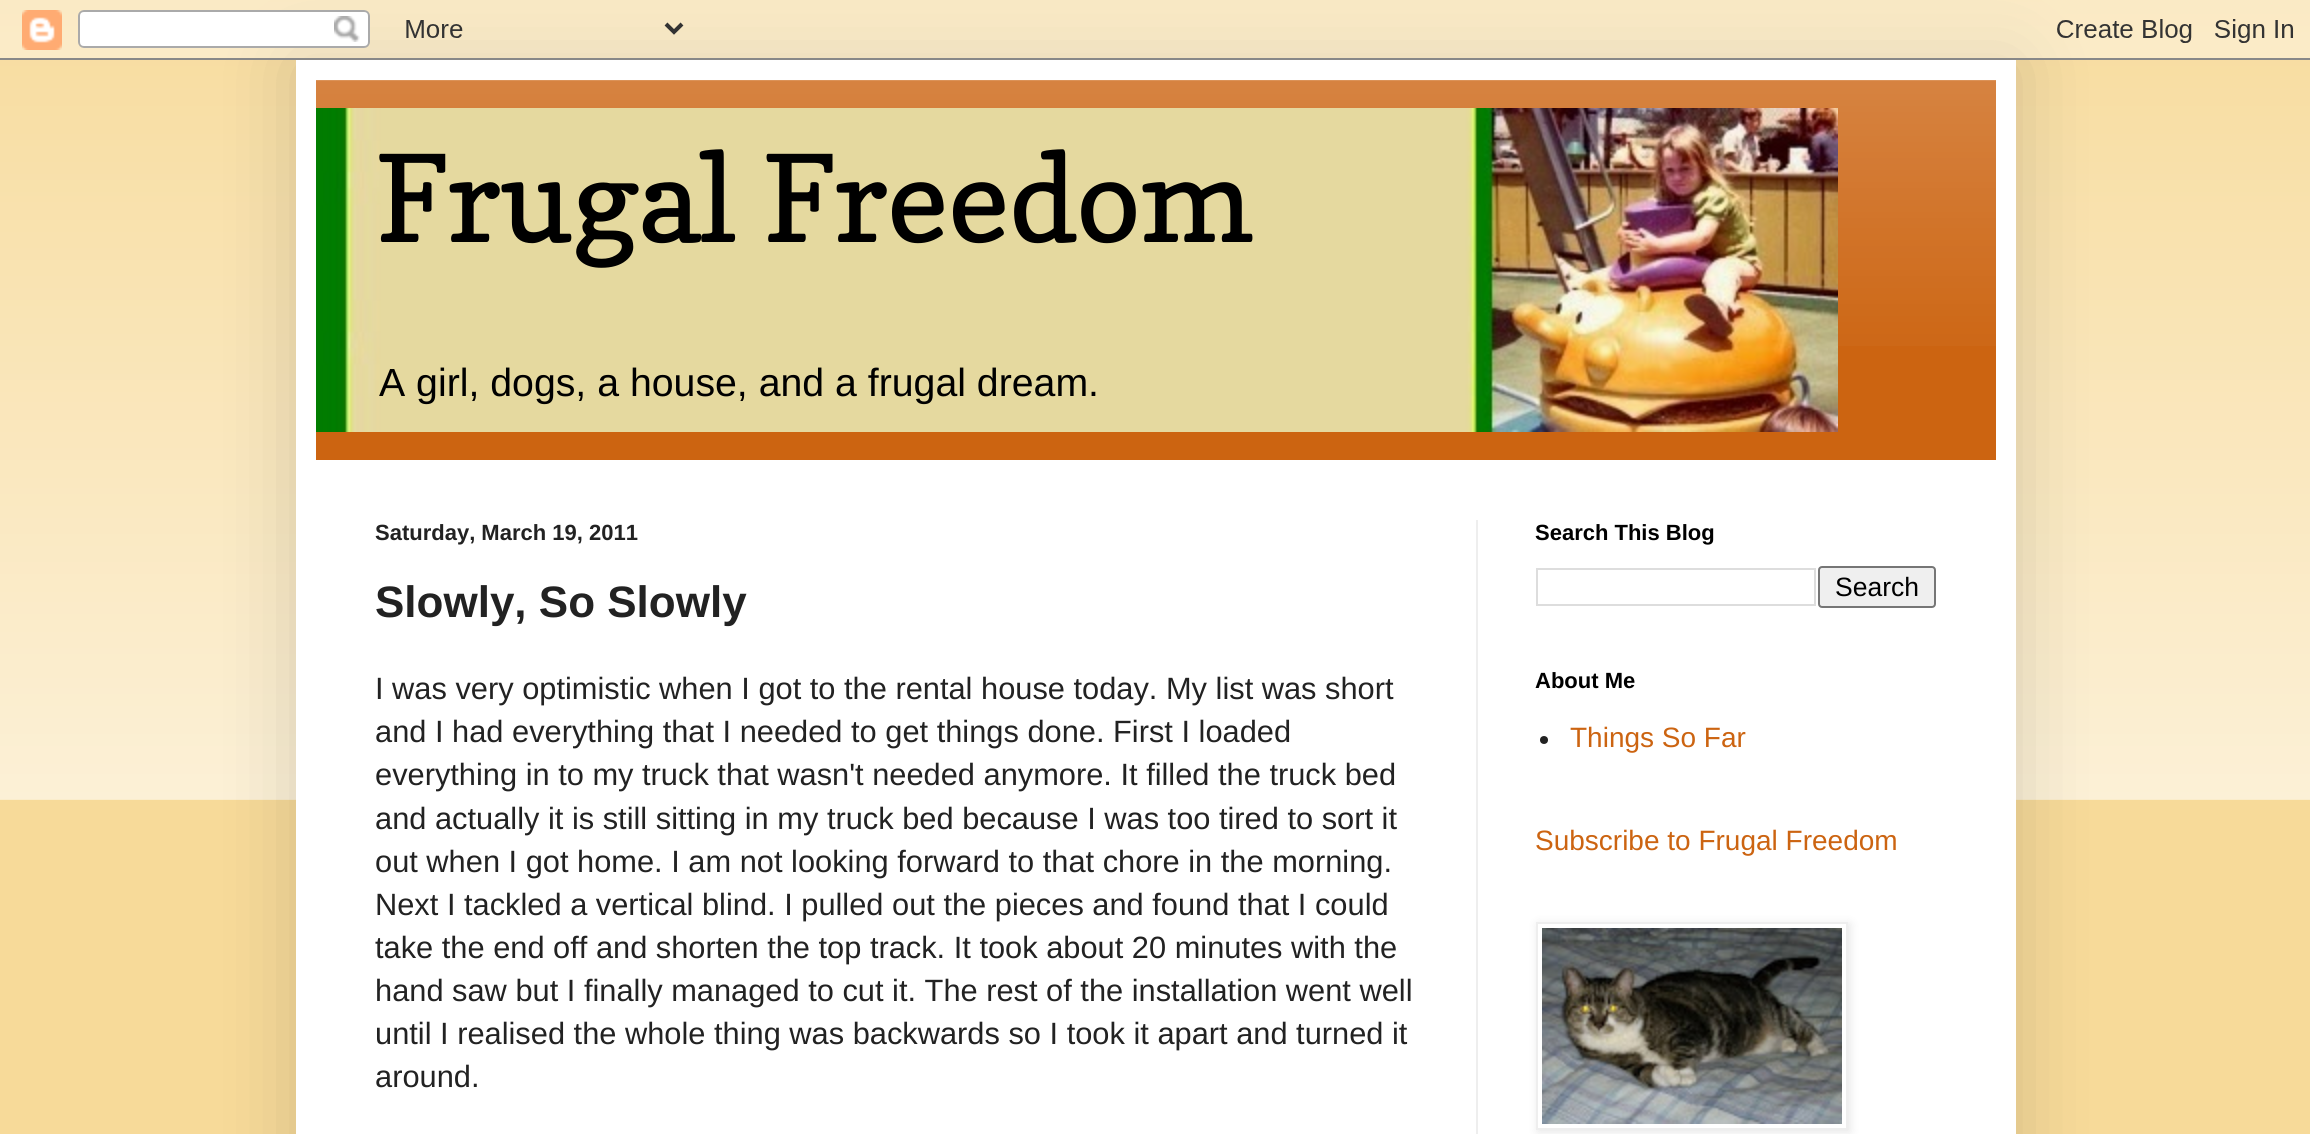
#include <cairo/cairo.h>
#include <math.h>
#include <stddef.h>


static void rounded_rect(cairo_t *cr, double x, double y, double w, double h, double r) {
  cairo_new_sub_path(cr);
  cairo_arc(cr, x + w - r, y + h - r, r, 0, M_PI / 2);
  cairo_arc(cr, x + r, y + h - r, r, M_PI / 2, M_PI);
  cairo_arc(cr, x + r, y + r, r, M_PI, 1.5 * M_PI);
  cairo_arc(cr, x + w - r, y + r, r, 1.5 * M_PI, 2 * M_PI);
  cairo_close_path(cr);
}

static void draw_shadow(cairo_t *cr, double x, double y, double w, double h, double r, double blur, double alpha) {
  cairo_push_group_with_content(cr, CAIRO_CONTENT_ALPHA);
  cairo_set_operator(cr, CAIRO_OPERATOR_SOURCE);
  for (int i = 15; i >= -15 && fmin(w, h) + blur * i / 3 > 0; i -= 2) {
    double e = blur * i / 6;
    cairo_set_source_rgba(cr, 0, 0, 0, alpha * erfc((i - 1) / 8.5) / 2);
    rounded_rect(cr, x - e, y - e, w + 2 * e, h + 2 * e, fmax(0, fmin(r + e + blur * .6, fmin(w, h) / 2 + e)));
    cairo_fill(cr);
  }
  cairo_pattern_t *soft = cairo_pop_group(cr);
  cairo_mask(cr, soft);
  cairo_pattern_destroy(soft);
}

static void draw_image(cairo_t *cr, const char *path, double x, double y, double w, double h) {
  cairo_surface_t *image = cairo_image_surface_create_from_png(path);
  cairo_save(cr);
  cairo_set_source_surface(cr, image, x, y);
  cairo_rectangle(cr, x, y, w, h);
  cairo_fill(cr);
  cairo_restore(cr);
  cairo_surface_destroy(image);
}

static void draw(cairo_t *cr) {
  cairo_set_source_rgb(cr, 247 / 255.0, 218 / 255.0, 153 / 255.0);
  cairo_paint(cr);
  draw_image(cr, "images/1.png", 0, 0, 2310, 800);
  cairo_set_source_rgb(cr, 0, 0, 0);
  draw_shadow(cr, 296, 60, 1720, 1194, 0, 40, 0.15);
  draw_image(cr, "images/2.png", 0, 0, 2310, 60);
  cairo_set_source_rgb(cr, 1, 1, 1);
  cairo_rectangle(cr, 296, 60, 1720, 1074);
  cairo_fill(cr);
  cairo_set_source_rgb(cr, 204 / 255.0, 100 / 255.0, 17 / 255.0);
  cairo_rectangle(cr, 316, 80, 1680, 380);
  cairo_fill(cr);
  draw_image(cr, "images/3.png", 316, 80, 1680, 266);
  draw_image(cr, "images/4.png", 316, 108, 1522, 324);
  cairo_set_source_rgb(cr, 238 / 255.0, 238 / 255.0, 238 / 255.0);
  cairo_rectangle(cr, 1476, 520, 2, 614);
  cairo_fill(cr);
  cairo_rectangle(cr, 1537, 569, 278, 36);
  cairo_set_source_rgb(cr, 221 / 255.0, 221 / 255.0, 221 / 255.0);
  cairo_stroke(cr);
  cairo_set_source_rgb(cr, 239 / 255.0, 239 / 255.0, 239 / 255.0);
  rounded_rect(cr, 1819, 567, 116, 40, 3);
  cairo_fill_preserve(cr);
  cairo_set_source_rgb(cr, 118 / 255.0, 118 / 255.0, 118 / 255.0);
  cairo_stroke(cr);
  cairo_set_source_rgb(cr, 34 / 255.0, 34 / 255.0, 34 / 255.0);
  cairo_arc(cr, 1544, 740, 4, 0, 2 * M_PI);
  cairo_fill(cr);
  cairo_save(cr);
  cairo_set_fill_rule(cr, CAIRO_FILL_RULE_EVEN_ODD);
  cairo_new_path(cr);
  cairo_move_to(cr, 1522, 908);
  cairo_line_to(cr, 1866, 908);
  cairo_line_to(cr, 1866, 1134);
  cairo_line_to(cr, 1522, 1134);
  cairo_close_path(cr);
  cairo_move_to(cr, 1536, 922);
  cairo_line_to(cr, 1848, 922);
  cairo_line_to(cr, 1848, 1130);
  cairo_line_to(cr, 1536, 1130);
  cairo_close_path(cr);
  cairo_clip(cr);
  cairo_set_source_rgb(cr, 0, 0, 0);
  draw_shadow(cr, 1538, 924, 312, 208, 0, 5, 0.1);
  cairo_restore(cr);
  cairo_rectangle(cr, 1537, 923, 310, 206);
  cairo_set_source_rgb(cr, 238 / 255.0, 238 / 255.0, 238 / 255.0);
  cairo_stroke(cr);
  draw_image(cr, "images/5.png", 1542, 928, 300, 196);
  cairo_select_font_face(cr, "Copse", CAIRO_FONT_SLANT_NORMAL, CAIRO_FONT_WEIGHT_NORMAL);
  cairo_set_font_size(cr, 120);
  cairo_set_source_rgb(cr, 0, 0, 0);
  cairo_move_to(cr, 375, 242);
  cairo_show_text(cr, "Frugal Freedom");
  cairo_select_font_face(cr, "Liberation Sans", CAIRO_FONT_SLANT_NORMAL, CAIRO_FONT_WEIGHT_NORMAL);
  cairo_set_font_size(cr, 39.25);
  cairo_move_to(cr, 379, 396);
  cairo_show_text(cr, "A girl, dogs, a house, and a frugal dream.");
  cairo_select_font_face(cr, "Liberation Sans", CAIRO_FONT_SLANT_NORMAL, CAIRO_FONT_WEIGHT_BOLD);
  cairo_set_font_size(cr, 22);
  cairo_set_source_rgb(cr, 34 / 255.0, 34 / 255.0, 34 / 255.0);
  cairo_move_to(cr, 375, 540);
  cairo_show_text(cr, "Saturday, March 19, 2011");
  cairo_set_font_size(cr, 44);
  cairo_move_to(cr, 375, 617);
  cairo_show_text(cr, "Slowly, So Slowly");
  cairo_select_font_face(cr, "Liberation Sans", CAIRO_FONT_SLANT_NORMAL, CAIRO_FONT_WEIGHT_NORMAL);
  cairo_set_font_size(cr, 30.8);
  cairo_move_to(cr, 375, 699);
  cairo_show_text(cr, "I was very optimistic when I got to the rental house today. My list was short");
  cairo_move_to(cr, 375, 742);
  cairo_show_text(cr, "and I had everything that I needed to get things done. First I loaded");
  cairo_move_to(cr, 375, 785);
  cairo_show_text(cr, "everything in to my truck that wasn't needed anymore. It filled the truck bed");
  cairo_move_to(cr, 375, 829);
  cairo_show_text(cr, "and actually it is still sitting in my truck bed because I was too tired to sort it");
  cairo_move_to(cr, 375, 872);
  cairo_show_text(cr, "out when I got home. I am not looking forward to that chore in the morning.");
  cairo_move_to(cr, 375, 915);
  cairo_show_text(cr, "Next I tackled a vertical blind. I pulled out the pieces and found that I could");
  cairo_move_to(cr, 375, 958);
  cairo_show_text(cr, "take the end off and shorten the top track. It took about 20 minutes with the");
  cairo_move_to(cr, 375, 1001);
  cairo_show_text(cr, "hand saw but I finally managed to cut it. The rest of the installation went well");
  cairo_move_to(cr, 375, 1044);
  cairo_show_text(cr, "until I realised the whole thing was backwards so I took it apart and turned it");
  cairo_move_to(cr, 375, 1087);
  cairo_show_text(cr, "around.");
  cairo_select_font_face(cr, "Liberation Sans", CAIRO_FONT_SLANT_NORMAL, CAIRO_FONT_WEIGHT_BOLD);
  cairo_set_font_size(cr, 22);
  cairo_set_source_rgb(cr, 0, 0, 0);
  cairo_move_to(cr, 1535, 540);
  cairo_show_text(cr, "Search This Blog");
  cairo_select_font_face(cr, "Liberation Sans", CAIRO_FONT_SLANT_NORMAL, CAIRO_FONT_WEIGHT_NORMAL);
  cairo_set_font_size(cr, 26.5);
  cairo_move_to(cr, 1835, 596);
  cairo_show_text(cr, "Search");
  cairo_select_font_face(cr, "Liberation Sans", CAIRO_FONT_SLANT_NORMAL, CAIRO_FONT_WEIGHT_BOLD);
  cairo_set_font_size(cr, 22);
  cairo_move_to(cr, 1535, 688);
  cairo_show_text(cr, "About Me");
  cairo_select_font_face(cr, "Liberation Sans", CAIRO_FONT_SLANT_NORMAL, CAIRO_FONT_WEIGHT_NORMAL);
  cairo_set_font_size(cr, 28);
  cairo_set_source_rgb(cr, 204 / 255.0, 100 / 255.0, 17 / 255.0);
  cairo_move_to(cr, 1570, 747);
  cairo_show_text(cr, "Things So Far");
  cairo_move_to(cr, 1535, 850);
  cairo_show_text(cr, "Subscribe to Frugal Freedom");
}

int main(void) {
  cairo_surface_t *surface = cairo_image_surface_create(CAIRO_FORMAT_RGB24, 2310, 1134);
  cairo_t *cr = cairo_create(surface);
  cairo_font_options_t *options = cairo_font_options_create();
  cairo_font_options_set_hint_metrics(options, CAIRO_HINT_METRICS_OFF);
  cairo_font_options_set_hint_style(options, CAIRO_HINT_STYLE_NONE);
  cairo_set_font_options(cr, options);
  cairo_set_miter_limit(cr, 4);
  draw(cr);
  cairo_surface_write_to_png(surface, "out.png");
  cairo_font_options_destroy(options);
  cairo_destroy(cr);
  cairo_surface_destroy(surface);
  return 0;
}
